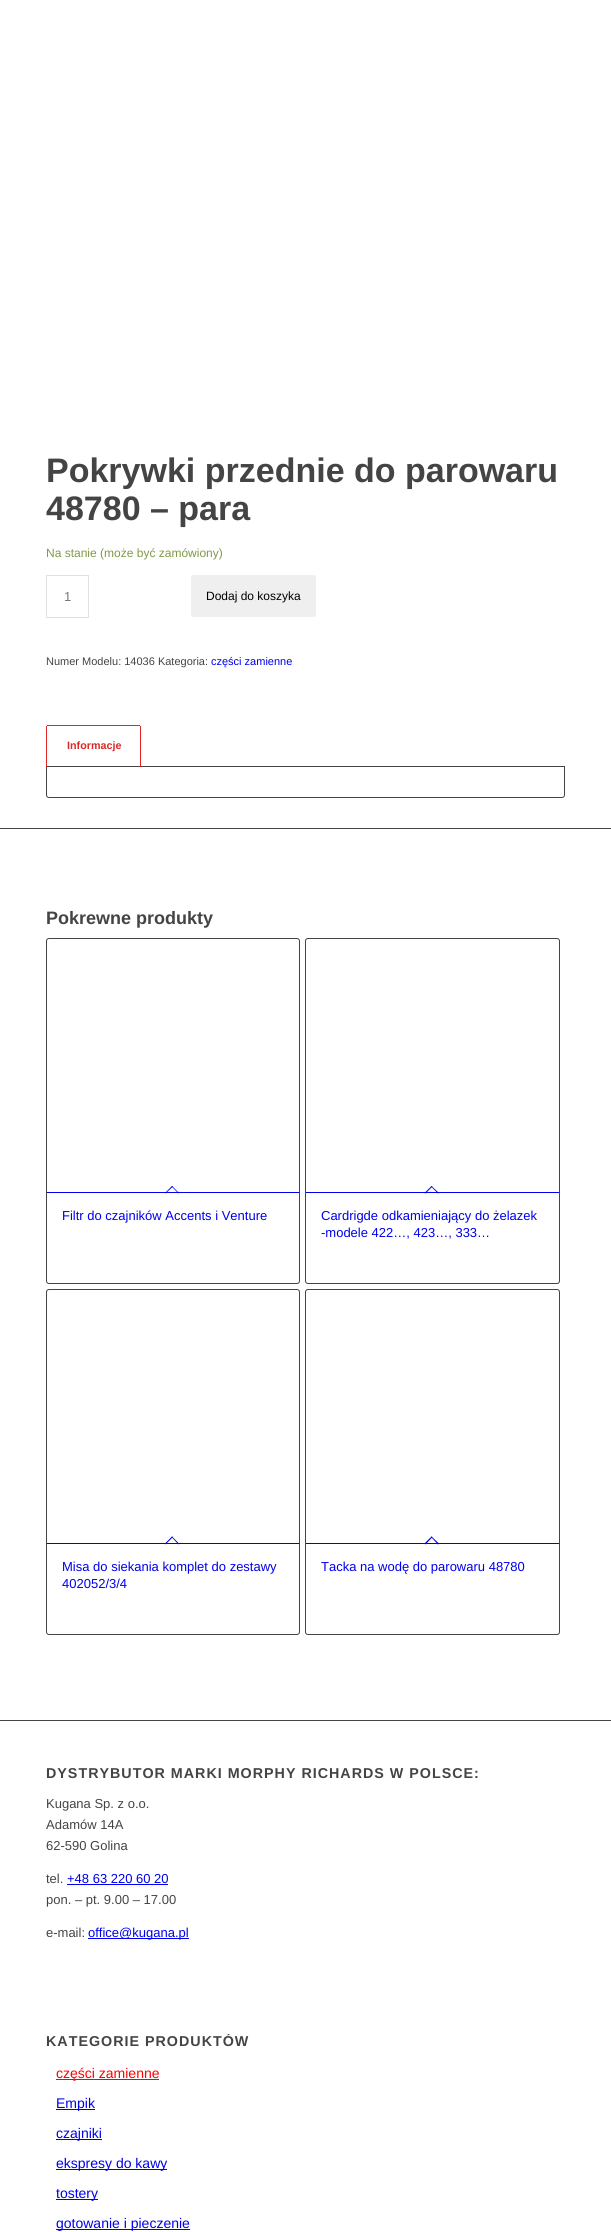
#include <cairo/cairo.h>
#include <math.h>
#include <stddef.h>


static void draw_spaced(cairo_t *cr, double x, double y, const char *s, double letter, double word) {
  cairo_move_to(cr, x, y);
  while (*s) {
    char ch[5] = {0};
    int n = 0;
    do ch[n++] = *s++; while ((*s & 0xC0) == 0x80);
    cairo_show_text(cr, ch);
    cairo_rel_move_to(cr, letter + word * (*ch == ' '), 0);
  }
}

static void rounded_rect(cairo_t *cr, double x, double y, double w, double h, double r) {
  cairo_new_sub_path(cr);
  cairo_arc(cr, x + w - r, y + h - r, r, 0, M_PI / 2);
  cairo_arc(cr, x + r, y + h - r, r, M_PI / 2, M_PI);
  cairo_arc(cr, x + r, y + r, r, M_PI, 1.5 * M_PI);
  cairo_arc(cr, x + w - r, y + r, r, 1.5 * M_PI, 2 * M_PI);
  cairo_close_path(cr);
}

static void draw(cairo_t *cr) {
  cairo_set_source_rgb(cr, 1, 1, 1);
  cairo_paint(cr);
  cairo_rectangle(cr, 46.5, 575.5, 42, 42);
  cairo_set_source_rgb(cr, 225 / 255.0, 225 / 255.0, 225 / 255.0);
  cairo_set_line_width(cr, 1);
  cairo_stroke(cr);
  cairo_set_source_rgb(cr, 239 / 255.0, 239 / 255.0, 239 / 255.0);
  rounded_rect(cr, 191, 575, 125, 42, 2);
  cairo_fill(cr);
  cairo_set_source_rgb(cr, 224 / 255.0, 38 / 255.0, 38 / 255.0);
  cairo_rectangle(cr, 47, 725, 93, 1);
  cairo_fill(cr);
  cairo_new_path(cr);
  cairo_move_to(cr, 46.5, 766.5);
  cairo_line_to(cr, 564.5, 766.5);
  cairo_line_to(cr, 564.5, 795);
  cairo_curve_to(cr, 564.5, 796.5, 563.5, 797.5, 562, 797.5);
  cairo_line_to(cr, 49, 797.5);
  cairo_curve_to(cr, 47.5, 797.5, 46.5, 796.5, 46.5, 795);
  cairo_close_path(cr);
  cairo_set_source_rgb(cr, 68 / 255.0, 68 / 255.0, 68 / 255.0);
  cairo_stroke(cr);
  cairo_set_source_rgb(cr, 224 / 255.0, 38 / 255.0, 38 / 255.0);
  cairo_rectangle(cr, 140, 726, 1, 41);
  cairo_fill(cr);
  cairo_rectangle(cr, 46, 726, 1, 41);
  cairo_fill(cr);
  cairo_set_source_rgb(cr, 68 / 255.0, 68 / 255.0, 68 / 255.0);
  cairo_rectangle(cr, 0, 828, 611, 1);
  cairo_fill(cr);
  rounded_rect(cr, 46.5, 938.5, 253, 345, 2.5);
  cairo_stroke(cr);
  cairo_set_source_rgb(cr, 0, 0, 238 / 255.0);
  cairo_rectangle(cr, 47, 1192, 252, 1);
  cairo_fill(cr);
  cairo_new_path(cr);
  cairo_move_to(cr, 172, 1186);
  cairo_line_to(cr, 179, 1193);
  cairo_line_to(cr, 178.5, 1193.5);
  cairo_line_to(cr, 171.5, 1186.5);
  cairo_close_path(cr);
  cairo_fill(cr);
  cairo_new_path(cr);
  cairo_move_to(cr, 172, 1186);
  cairo_line_to(cr, 173, 1186.5);
  cairo_line_to(cr, 165.5, 1193.5);
  cairo_line_to(cr, 165, 1193);
  cairo_close_path(cr);
  cairo_fill(cr);
  rounded_rect(cr, 305.5, 938.5, 254, 345, 2.5);
  cairo_set_source_rgb(cr, 68 / 255.0, 68 / 255.0, 68 / 255.0);
  cairo_stroke(cr);
  cairo_set_source_rgb(cr, 0, 0, 238 / 255.0);
  cairo_rectangle(cr, 306, 1192, 253, 1);
  cairo_fill(cr);
  cairo_new_path(cr);
  cairo_move_to(cr, 431.5, 1186);
  cairo_line_to(cr, 439, 1193);
  cairo_line_to(cr, 438, 1193.5);
  cairo_line_to(cr, 431, 1186.5);
  cairo_close_path(cr);
  cairo_fill(cr);
  cairo_new_path(cr);
  cairo_move_to(cr, 431.5, 1186);
  cairo_line_to(cr, 432.5, 1186.5);
  cairo_line_to(cr, 425.5, 1193.5);
  cairo_line_to(cr, 424.5, 1193);
  cairo_close_path(cr);
  cairo_fill(cr);
  rounded_rect(cr, 46.5, 1289.5, 253, 345, 2.5);
  cairo_set_source_rgb(cr, 68 / 255.0, 68 / 255.0, 68 / 255.0);
  cairo_stroke(cr);
  cairo_set_source_rgb(cr, 0, 0, 238 / 255.0);
  cairo_rectangle(cr, 47, 1543, 252, 1);
  cairo_fill(cr);
  cairo_new_path(cr);
  cairo_move_to(cr, 172, 1536.5);
  cairo_line_to(cr, 179, 1543.5);
  cairo_line_to(cr, 178.5, 1544.5);
  cairo_line_to(cr, 171.5, 1537);
  cairo_close_path(cr);
  cairo_fill(cr);
  cairo_new_path(cr);
  cairo_move_to(cr, 172, 1536.5);
  cairo_line_to(cr, 173, 1537);
  cairo_line_to(cr, 165.5, 1544.5);
  cairo_line_to(cr, 165, 1543.5);
  cairo_close_path(cr);
  cairo_fill(cr);
  rounded_rect(cr, 305.5, 1289.5, 254, 345, 2.5);
  cairo_set_source_rgb(cr, 68 / 255.0, 68 / 255.0, 68 / 255.0);
  cairo_stroke(cr);
  cairo_set_source_rgb(cr, 0, 0, 238 / 255.0);
  cairo_rectangle(cr, 306, 1543, 253, 1);
  cairo_fill(cr);
  cairo_new_path(cr);
  cairo_move_to(cr, 431.5, 1536.5);
  cairo_line_to(cr, 439, 1543.5);
  cairo_line_to(cr, 438, 1544.5);
  cairo_line_to(cr, 431, 1537);
  cairo_close_path(cr);
  cairo_fill(cr);
  cairo_new_path(cr);
  cairo_move_to(cr, 431.5, 1536.5);
  cairo_line_to(cr, 432.5, 1537);
  cairo_line_to(cr, 425.5, 1544.5);
  cairo_line_to(cr, 424.5, 1543.5);
  cairo_close_path(cr);
  cairo_fill(cr);
  cairo_set_source_rgb(cr, 68 / 255.0, 68 / 255.0, 68 / 255.0);
  cairo_rectangle(cr, 0, 1720, 611, 1);
  cairo_fill(cr);
  cairo_set_source_rgb(cr, 0, 0, 238 / 255.0);
  cairo_rectangle(cr, 67, 1884, 101, 1);
  cairo_fill(cr);
  cairo_rectangle(cr, 88, 1938, 101, 1);
  cairo_fill(cr);
  cairo_set_source_rgb(cr, 1, 0, 0);
  cairo_rectangle(cr, 56, 2079, 103, 1);
  cairo_fill(cr);
  cairo_set_source_rgb(cr, 0, 0, 238 / 255.0);
  cairo_rectangle(cr, 56, 2109, 39, 1);
  cairo_fill(cr);
  cairo_rectangle(cr, 56, 2139, 46, 1);
  cairo_fill(cr);
  cairo_rectangle(cr, 56, 2169, 111, 1);
  cairo_fill(cr);
  cairo_rectangle(cr, 56, 2199, 42, 1);
  cairo_fill(cr);
  cairo_rectangle(cr, 56, 2229, 134, 1);
  cairo_fill(cr);
  cairo_select_font_face(cr, "Liberation Sans", CAIRO_FONT_SLANT_NORMAL, CAIRO_FONT_WEIGHT_BOLD);
  cairo_set_font_size(cr, 34);
  cairo_set_source_rgb(cr, 68 / 255.0, 68 / 255.0, 68 / 255.0);
  cairo_move_to(cr, 46, 482);
  cairo_show_text(cr, "Pokrywki przednie do parowaru");
  cairo_move_to(cr, 46, 520);
  cairo_show_text(cr, "48780 – para");
  cairo_select_font_face(cr, "Liberation Sans", CAIRO_FONT_SLANT_NORMAL, CAIRO_FONT_WEIGHT_NORMAL);
  cairo_set_font_size(cr, 12);
  cairo_set_source_rgb(cr, 126 / 255.0, 154 / 255.0, 71 / 255.0);
  cairo_move_to(cr, 46, 557);
  cairo_show_text(cr, "Na stanie (może być zamówiony)");
  cairo_set_font_size(cr, 13);
  cairo_set_source_rgb(cr, 119 / 255.0, 119 / 255.0, 119 / 255.0);
  cairo_move_to(cr, 64, 601);
  cairo_show_text(cr, "1");
  cairo_set_font_size(cr, 12);
  cairo_set_source_rgb(cr, 0, 0, 0);
  cairo_move_to(cr, 206, 600);
  cairo_show_text(cr, "Dodaj do koszyka");
  cairo_set_font_size(cr, 11);
  cairo_set_source_rgb(cr, 68 / 255.0, 68 / 255.0, 68 / 255.0);
  cairo_move_to(cr, 46, 665);
  cairo_show_text(cr, "Numer Modelu: 14036 Kategoria:");
  cairo_set_source_rgb(cr, 0, 0, 238 / 255.0);
  cairo_move_to(cr, 211, 665);
  cairo_show_text(cr, "części zamienne");
  cairo_select_font_face(cr, "Liberation Sans", CAIRO_FONT_SLANT_NORMAL, CAIRO_FONT_WEIGHT_BOLD);
  cairo_set_font_size(cr, 10.75);
  cairo_set_source_rgb(cr, 224 / 255.0, 38 / 255.0, 38 / 255.0);
  cairo_move_to(cr, 67, 749);
  cairo_show_text(cr, "Informacje");
  cairo_set_font_size(cr, 18);
  cairo_set_source_rgb(cr, 68 / 255.0, 68 / 255.0, 68 / 255.0);
  cairo_move_to(cr, 46, 924);
  cairo_show_text(cr, "Pokrewne produkty");
  cairo_select_font_face(cr, "Liberation Sans", CAIRO_FONT_SLANT_NORMAL, CAIRO_FONT_WEIGHT_NORMAL);
  cairo_set_font_size(cr, 13);
  cairo_set_source_rgb(cr, 0, 0, 238 / 255.0);
  cairo_move_to(cr, 62, 1220);
  cairo_show_text(cr, "Filtr do czajników Accents i Venture");
  cairo_move_to(cr, 321, 1220);
  cairo_show_text(cr, "Cardrigde odkamieniający do żelazek");
  cairo_move_to(cr, 321, 1237);
  cairo_show_text(cr, "-modele 422…, 423…, 333…");
  cairo_move_to(cr, 62, 1571);
  cairo_show_text(cr, "Misa do siekania komplet do zestawy");
  cairo_move_to(cr, 62, 1588);
  cairo_show_text(cr, "402052/3/4");
  cairo_move_to(cr, 321, 1571);
  cairo_show_text(cr, "Tacka na wodę do parowaru 48780");
  cairo_select_font_face(cr, "Liberation Sans", CAIRO_FONT_SLANT_NORMAL, CAIRO_FONT_WEIGHT_BOLD);
  cairo_set_font_size(cr, 14.3);
  cairo_set_source_rgb(cr, 68 / 255.0, 68 / 255.0, 68 / 255.0);
  draw_spaced(cr, 46, 1778, "DYSTRYBUTOR MARKI MORPHY RICHARDS W POLSCE:", 1, 0);
  cairo_select_font_face(cr, "Liberation Sans", CAIRO_FONT_SLANT_NORMAL, CAIRO_FONT_WEIGHT_NORMAL);
  cairo_set_font_size(cr, 13);
  cairo_move_to(cr, 46, 1808);
  cairo_show_text(cr, "Kugana Sp. z o.o.");
  cairo_move_to(cr, 46, 1829);
  cairo_show_text(cr, "Adamów 14A");
  cairo_move_to(cr, 46, 1850);
  cairo_show_text(cr, "62-590 Golina");
  cairo_move_to(cr, 46, 1883);
  cairo_show_text(cr, "tel.");
  cairo_set_source_rgb(cr, 0, 0, 238 / 255.0);
  cairo_move_to(cr, 67, 1883);
  cairo_show_text(cr, "+48 63 220 60 20");
  cairo_set_source_rgb(cr, 68 / 255.0, 68 / 255.0, 68 / 255.0);
  cairo_move_to(cr, 46, 1904);
  cairo_show_text(cr, "pon. – pt. 9.00 – 17.00");
  cairo_move_to(cr, 46, 1937);
  cairo_show_text(cr, "e-mail:");
  cairo_set_source_rgb(cr, 0, 0, 238 / 255.0);
  cairo_move_to(cr, 88, 1937);
  cairo_show_text(cr, "office@kugana.pl");
  cairo_save(cr);
  cairo_rectangle(cr, 46, 2034, 519, 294);
  cairo_clip(cr);
  cairo_select_font_face(cr, "Liberation Sans", CAIRO_FONT_SLANT_NORMAL, CAIRO_FONT_WEIGHT_BOLD);
  cairo_set_font_size(cr, 14.3);
  cairo_set_source_rgb(cr, 68 / 255.0, 68 / 255.0, 68 / 255.0);
  draw_spaced(cr, 46, 2046, "KATEGORIE PRODUKTÓW", 1, 0);
  cairo_restore(cr);
  cairo_set_font_size(cr, 14);
  cairo_set_source_rgb(cr, 1, 0, 0);
  cairo_move_to(cr, 56, 2078);
  cairo_show_text(cr, "części zamienne");
  cairo_set_source_rgb(cr, 0, 0, 238 / 255.0);
  cairo_move_to(cr, 56, 2108);
  cairo_show_text(cr, "Empik");
  cairo_move_to(cr, 56, 2138);
  cairo_show_text(cr, "czajniki");
  cairo_move_to(cr, 56, 2168);
  cairo_show_text(cr, "ekspresy do kawy");
  cairo_move_to(cr, 56, 2198);
  cairo_show_text(cr, "tostery");
  cairo_move_to(cr, 56, 2228);
  cairo_show_text(cr, "gotowanie i pieczenie");
}

int main(void) {
  cairo_surface_t *surface = cairo_image_surface_create(CAIRO_FORMAT_RGB24, 611, 2232);
  cairo_t *cr = cairo_create(surface);
  cairo_font_options_t *options = cairo_font_options_create();
  cairo_font_options_set_hint_metrics(options, CAIRO_HINT_METRICS_OFF);
  cairo_font_options_set_hint_style(options, CAIRO_HINT_STYLE_NONE);
  cairo_set_font_options(cr, options);
  cairo_set_miter_limit(cr, 4);
  draw(cr);
  cairo_surface_write_to_png(surface, "out.png");
  cairo_font_options_destroy(options);
  cairo_destroy(cr);
  cairo_surface_destroy(surface);
  return 0;
}
